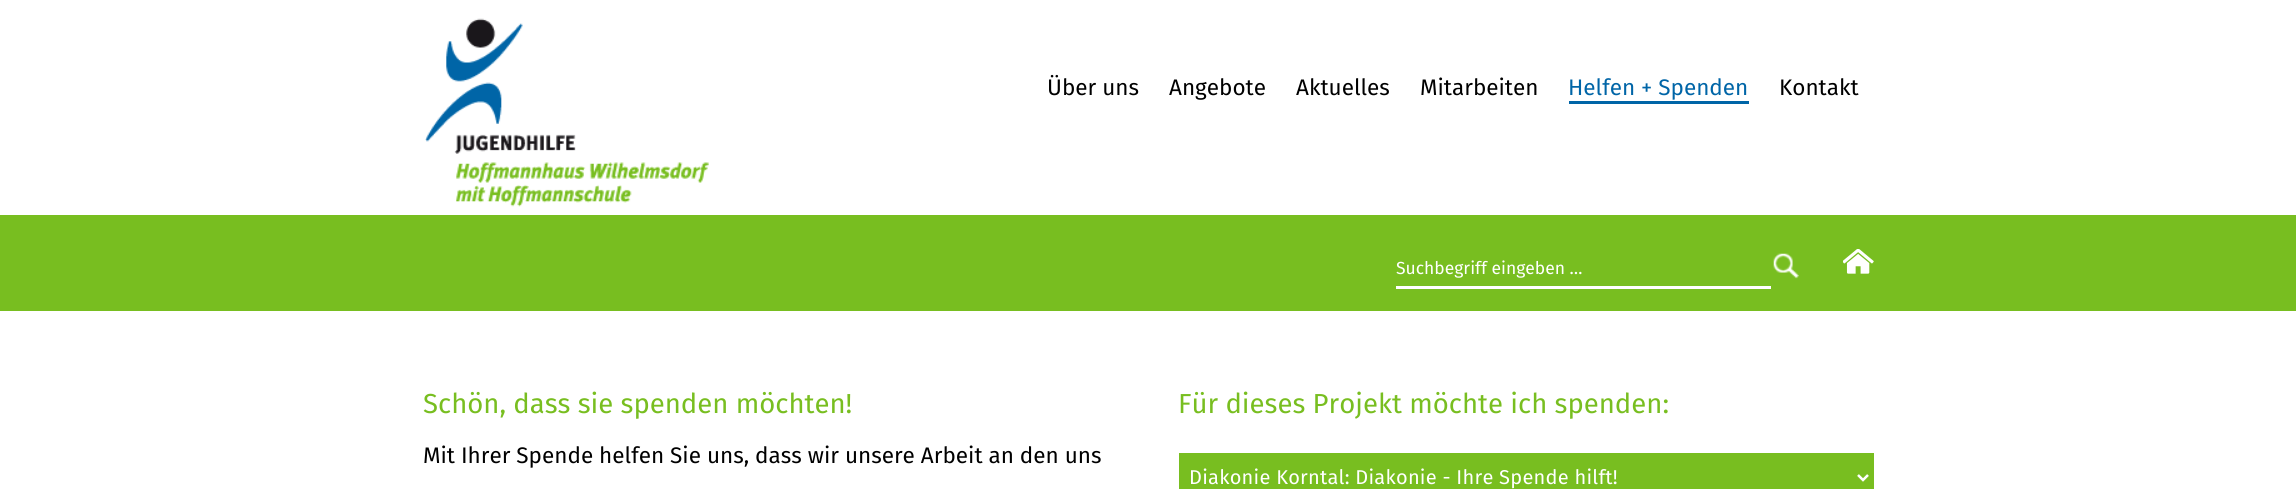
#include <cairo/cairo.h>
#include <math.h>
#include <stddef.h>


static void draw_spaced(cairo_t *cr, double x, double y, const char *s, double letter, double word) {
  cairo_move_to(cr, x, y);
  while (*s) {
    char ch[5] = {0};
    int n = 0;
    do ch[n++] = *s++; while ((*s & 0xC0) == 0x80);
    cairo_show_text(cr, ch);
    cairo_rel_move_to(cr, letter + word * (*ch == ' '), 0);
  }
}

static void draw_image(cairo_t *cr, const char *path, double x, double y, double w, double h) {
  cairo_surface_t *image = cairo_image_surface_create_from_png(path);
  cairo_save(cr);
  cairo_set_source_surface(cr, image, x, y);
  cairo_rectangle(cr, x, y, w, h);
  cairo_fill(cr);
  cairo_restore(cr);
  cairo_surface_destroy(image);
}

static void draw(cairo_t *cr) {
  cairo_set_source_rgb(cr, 1, 1, 1);
  cairo_paint(cr);
  draw_image(cr, "images/1.png", 425, 18, 284, 189);
  cairo_set_source_rgb(cr, 0, 101 / 255.0, 167 / 255.0);
  cairo_rectangle(cr, 1569, 101, 180, 3);
  cairo_fill(cr);
  cairo_set_source_rgb(cr, 120 / 255.0, 190 / 255.0, 32 / 255.0);
  cairo_rectangle(cr, 0, 215, 2296, 96);
  cairo_fill(cr);
  cairo_set_source_rgb(cr, 1, 1, 1);
  cairo_rectangle(cr, 1396, 286, 375, 3);
  cairo_fill(cr);
  draw_image(cr, "images/2.png", 1773, 253, 26, 26);
  draw_image(cr, "images/3.png", 1843, 249, 31, 25);
  cairo_set_source_rgb(cr, 120 / 255.0, 190 / 255.0, 32 / 255.0);
  cairo_rectangle(cr, 1179, 453, 695, 36);
  cairo_fill(cr);
  cairo_new_path(cr);
  cairo_move_to(cr, 1858, 475);
  cairo_line_to(cr, 1863, 480);
  cairo_line_to(cr, 1868, 475);
  cairo_set_source_rgb(cr, 1, 1, 1);
  cairo_set_line_width(cr, 2.5);
  cairo_stroke(cr);
  cairo_select_font_face(cr, "Fira Sans", CAIRO_FONT_SLANT_NORMAL, CAIRO_FONT_WEIGHT_NORMAL);
  cairo_set_font_size(cr, 22.5);
  cairo_set_source_rgb(cr, 0, 0, 0);
  cairo_move_to(cr, 1047, 95);
  cairo_show_text(cr, "Über uns");
  cairo_move_to(cr, 1169, 95);
  cairo_show_text(cr, "Angebote");
  cairo_move_to(cr, 1296, 95);
  cairo_show_text(cr, "Aktuelles");
  cairo_move_to(cr, 1420, 95);
  cairo_show_text(cr, "Mitarbeiten");
  cairo_set_source_rgb(cr, 0, 101 / 255.0, 167 / 255.0);
  cairo_move_to(cr, 1568, 95);
  cairo_show_text(cr, "Helfen + Spenden");
  cairo_set_source_rgb(cr, 0, 0, 0);
  cairo_move_to(cr, 1779, 95);
  cairo_show_text(cr, "Kontakt");
  cairo_set_font_size(cr, 17.5);
  cairo_set_source_rgb(cr, 1, 1, 1);
  cairo_move_to(cr, 1396, 274);
  cairo_show_text(cr, "Suchbegriff eingeben …");
  cairo_set_font_size(cr, 27.5);
  cairo_set_source_rgb(cr, 120 / 255.0, 190 / 255.0, 32 / 255.0);
  cairo_move_to(cr, 423, 413);
  cairo_show_text(cr, "Schön, dass sie spenden möchten!");
  cairo_set_font_size(cr, 22.5);
  cairo_set_source_rgb(cr, 0, 0, 0);
  cairo_move_to(cr, 423, 463);
  cairo_show_text(cr, "Mit Ihrer Spende helfen Sie uns, dass wir unsere Arbeit an den uns");
  cairo_set_font_size(cr, 27.5);
  cairo_set_source_rgb(cr, 120 / 255.0, 190 / 255.0, 32 / 255.0);
  cairo_move_to(cr, 1178, 413);
  cairo_show_text(cr, "Für dieses Projekt möchte ich spenden:");
  cairo_set_font_size(cr, 20);
  cairo_set_source_rgb(cr, 1, 1, 1);
  draw_spaced(cr, 1189, 484, "Diakonie Korntal: Diakonie - Ihre Spende hilft!", 0.25, 0);
}

int main(void) {
  cairo_surface_t *surface = cairo_image_surface_create(CAIRO_FORMAT_RGB24, 2296, 489);
  cairo_t *cr = cairo_create(surface);
  cairo_font_options_t *options = cairo_font_options_create();
  cairo_font_options_set_hint_metrics(options, CAIRO_HINT_METRICS_OFF);
  cairo_font_options_set_hint_style(options, CAIRO_HINT_STYLE_NONE);
  cairo_set_font_options(cr, options);
  cairo_set_miter_limit(cr, 4);
  draw(cr);
  cairo_surface_write_to_png(surface, "out.png");
  cairo_font_options_destroy(options);
  cairo_destroy(cr);
  cairo_surface_destroy(surface);
  return 0;
}
